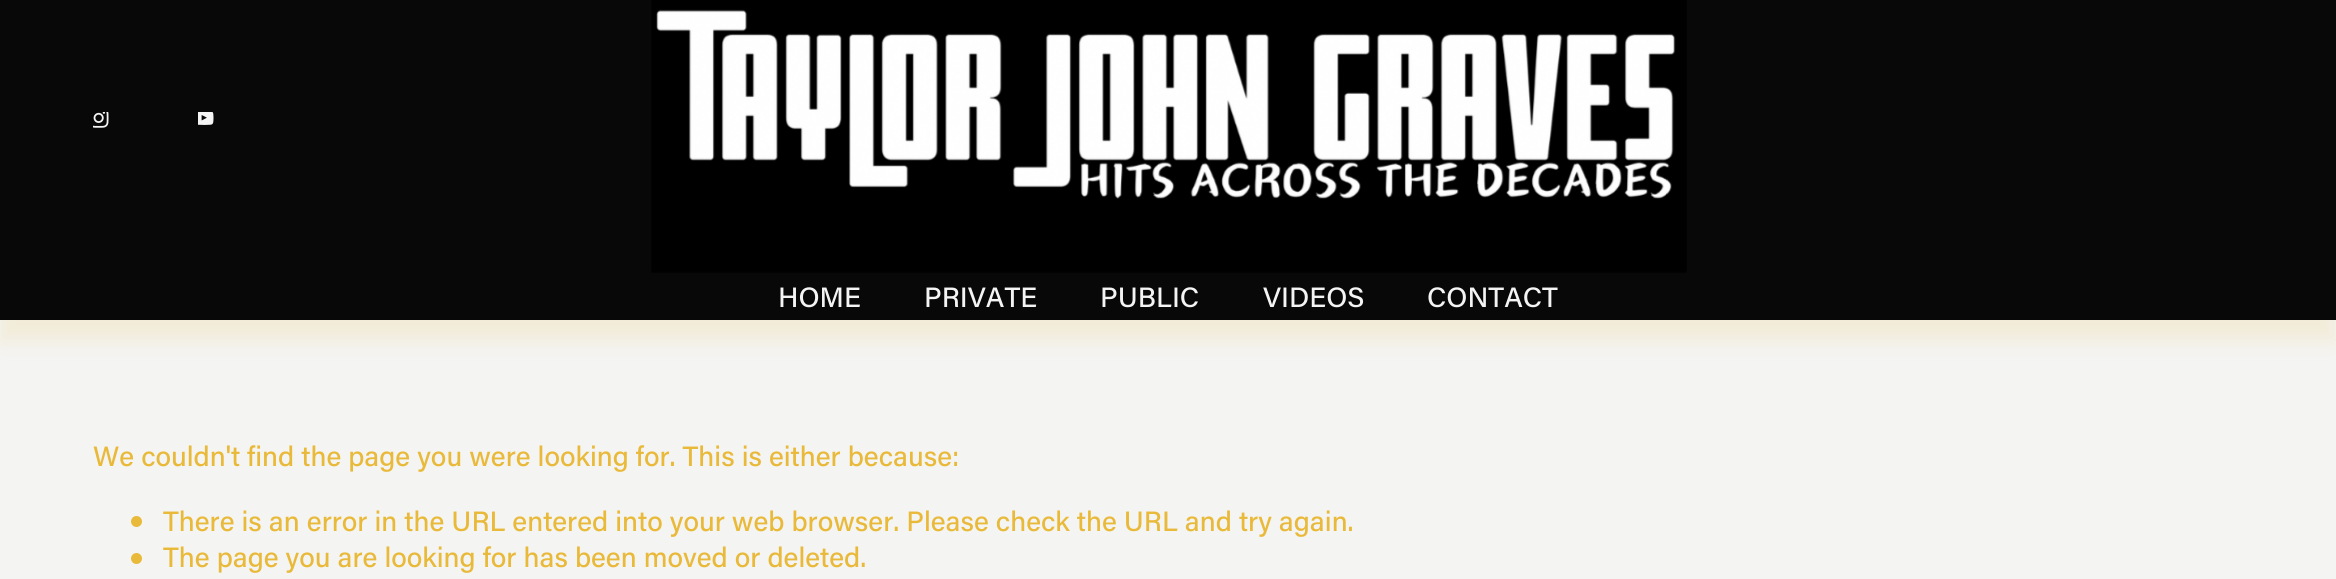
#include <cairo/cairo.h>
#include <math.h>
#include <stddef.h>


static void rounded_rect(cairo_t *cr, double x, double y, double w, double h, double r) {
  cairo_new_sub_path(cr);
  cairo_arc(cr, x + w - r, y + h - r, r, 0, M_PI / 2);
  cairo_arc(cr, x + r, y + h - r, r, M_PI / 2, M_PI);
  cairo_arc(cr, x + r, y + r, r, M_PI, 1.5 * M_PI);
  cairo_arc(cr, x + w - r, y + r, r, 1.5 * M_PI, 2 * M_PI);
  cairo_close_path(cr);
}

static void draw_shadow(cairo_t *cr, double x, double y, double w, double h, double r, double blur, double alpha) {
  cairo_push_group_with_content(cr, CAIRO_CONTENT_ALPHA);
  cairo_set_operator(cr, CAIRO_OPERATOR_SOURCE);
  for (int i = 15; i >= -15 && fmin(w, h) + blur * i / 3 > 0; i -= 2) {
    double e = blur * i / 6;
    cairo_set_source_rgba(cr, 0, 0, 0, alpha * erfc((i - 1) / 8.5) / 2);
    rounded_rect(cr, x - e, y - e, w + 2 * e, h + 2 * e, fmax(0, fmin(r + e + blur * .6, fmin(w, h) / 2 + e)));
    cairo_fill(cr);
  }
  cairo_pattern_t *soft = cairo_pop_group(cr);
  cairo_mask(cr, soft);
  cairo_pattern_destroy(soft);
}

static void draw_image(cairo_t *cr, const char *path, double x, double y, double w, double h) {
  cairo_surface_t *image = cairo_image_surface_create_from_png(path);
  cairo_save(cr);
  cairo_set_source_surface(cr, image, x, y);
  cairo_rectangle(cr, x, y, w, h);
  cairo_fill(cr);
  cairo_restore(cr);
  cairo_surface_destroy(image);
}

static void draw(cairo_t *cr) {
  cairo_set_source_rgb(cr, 244 / 255.0, 244 / 255.0, 243 / 255.0);
  cairo_paint(cr);
  cairo_set_source_rgb(cr, 242 / 255.0, 235 / 255.0, 215 / 255.0);
  draw_shadow(cr, 0, -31, 2336, 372, 0, 10.5, 1);
  cairo_set_source_rgb(cr, 8 / 255.0, 8 / 255.0, 8 / 255.0);
  cairo_rectangle(cr, 0, 0, 2336, 320);
  cairo_fill(cr);
  draw_image(cr, "images/1.png", 93, 112, 16, 16);
  draw_image(cr, "images/2.png", 198, 112, 16, 13);
  draw_image(cr, "images/3.png", 651, 0, 1036, 273);
  cairo_set_source_rgb(cr, 233 / 255.0, 185 / 255.0, 57 / 255.0);
  cairo_arc(cr, 136.5, 521.5, 5.5, 0, 2 * M_PI);
  cairo_fill(cr);
  cairo_arc(cr, 136.5, 558.5, 5.5, 0, 2 * M_PI);
  cairo_fill(cr);
  cairo_select_font_face(cr, "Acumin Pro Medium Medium", CAIRO_FONT_SLANT_NORMAL, CAIRO_FONT_WEIGHT_NORMAL);
  cairo_set_font_size(cr, 28);
  cairo_set_source_rgb(cr, 244 / 255.0, 244 / 255.0, 244 / 255.0);
  cairo_move_to(cr, 778, 307);
  cairo_show_text(cr, "HOME");
  cairo_move_to(cr, 924, 307);
  cairo_show_text(cr, "PRIVATE");
  cairo_move_to(cr, 1100, 307);
  cairo_show_text(cr, "PUBLIC");
  cairo_move_to(cr, 1263, 307);
  cairo_show_text(cr, "VIDEOS");
  cairo_move_to(cr, 1427, 307);
  cairo_show_text(cr, "CONTACT");
  cairo_set_source_rgb(cr, 233 / 255.0, 185 / 255.0, 57 / 255.0);
  cairo_move_to(cr, 93, 466);
  cairo_show_text(cr, "We couldn't find the page you were looking for. This is either because:");
  cairo_move_to(cr, 163, 531);
  cairo_show_text(cr, "There is an error in the URL entered into your web browser. Please check the URL and try again.");
  cairo_move_to(cr, 163, 567);
  cairo_show_text(cr, "The page you are looking for has been moved or deleted.");
}

int main(void) {
  cairo_surface_t *surface = cairo_image_surface_create(CAIRO_FORMAT_RGB24, 2336, 579);
  cairo_t *cr = cairo_create(surface);
  cairo_font_options_t *options = cairo_font_options_create();
  cairo_font_options_set_hint_metrics(options, CAIRO_HINT_METRICS_OFF);
  cairo_font_options_set_hint_style(options, CAIRO_HINT_STYLE_NONE);
  cairo_set_font_options(cr, options);
  cairo_set_miter_limit(cr, 4);
  draw(cr);
  cairo_surface_write_to_png(surface, "out.png");
  cairo_font_options_destroy(options);
  cairo_destroy(cr);
  cairo_surface_destroy(surface);
  return 0;
}
